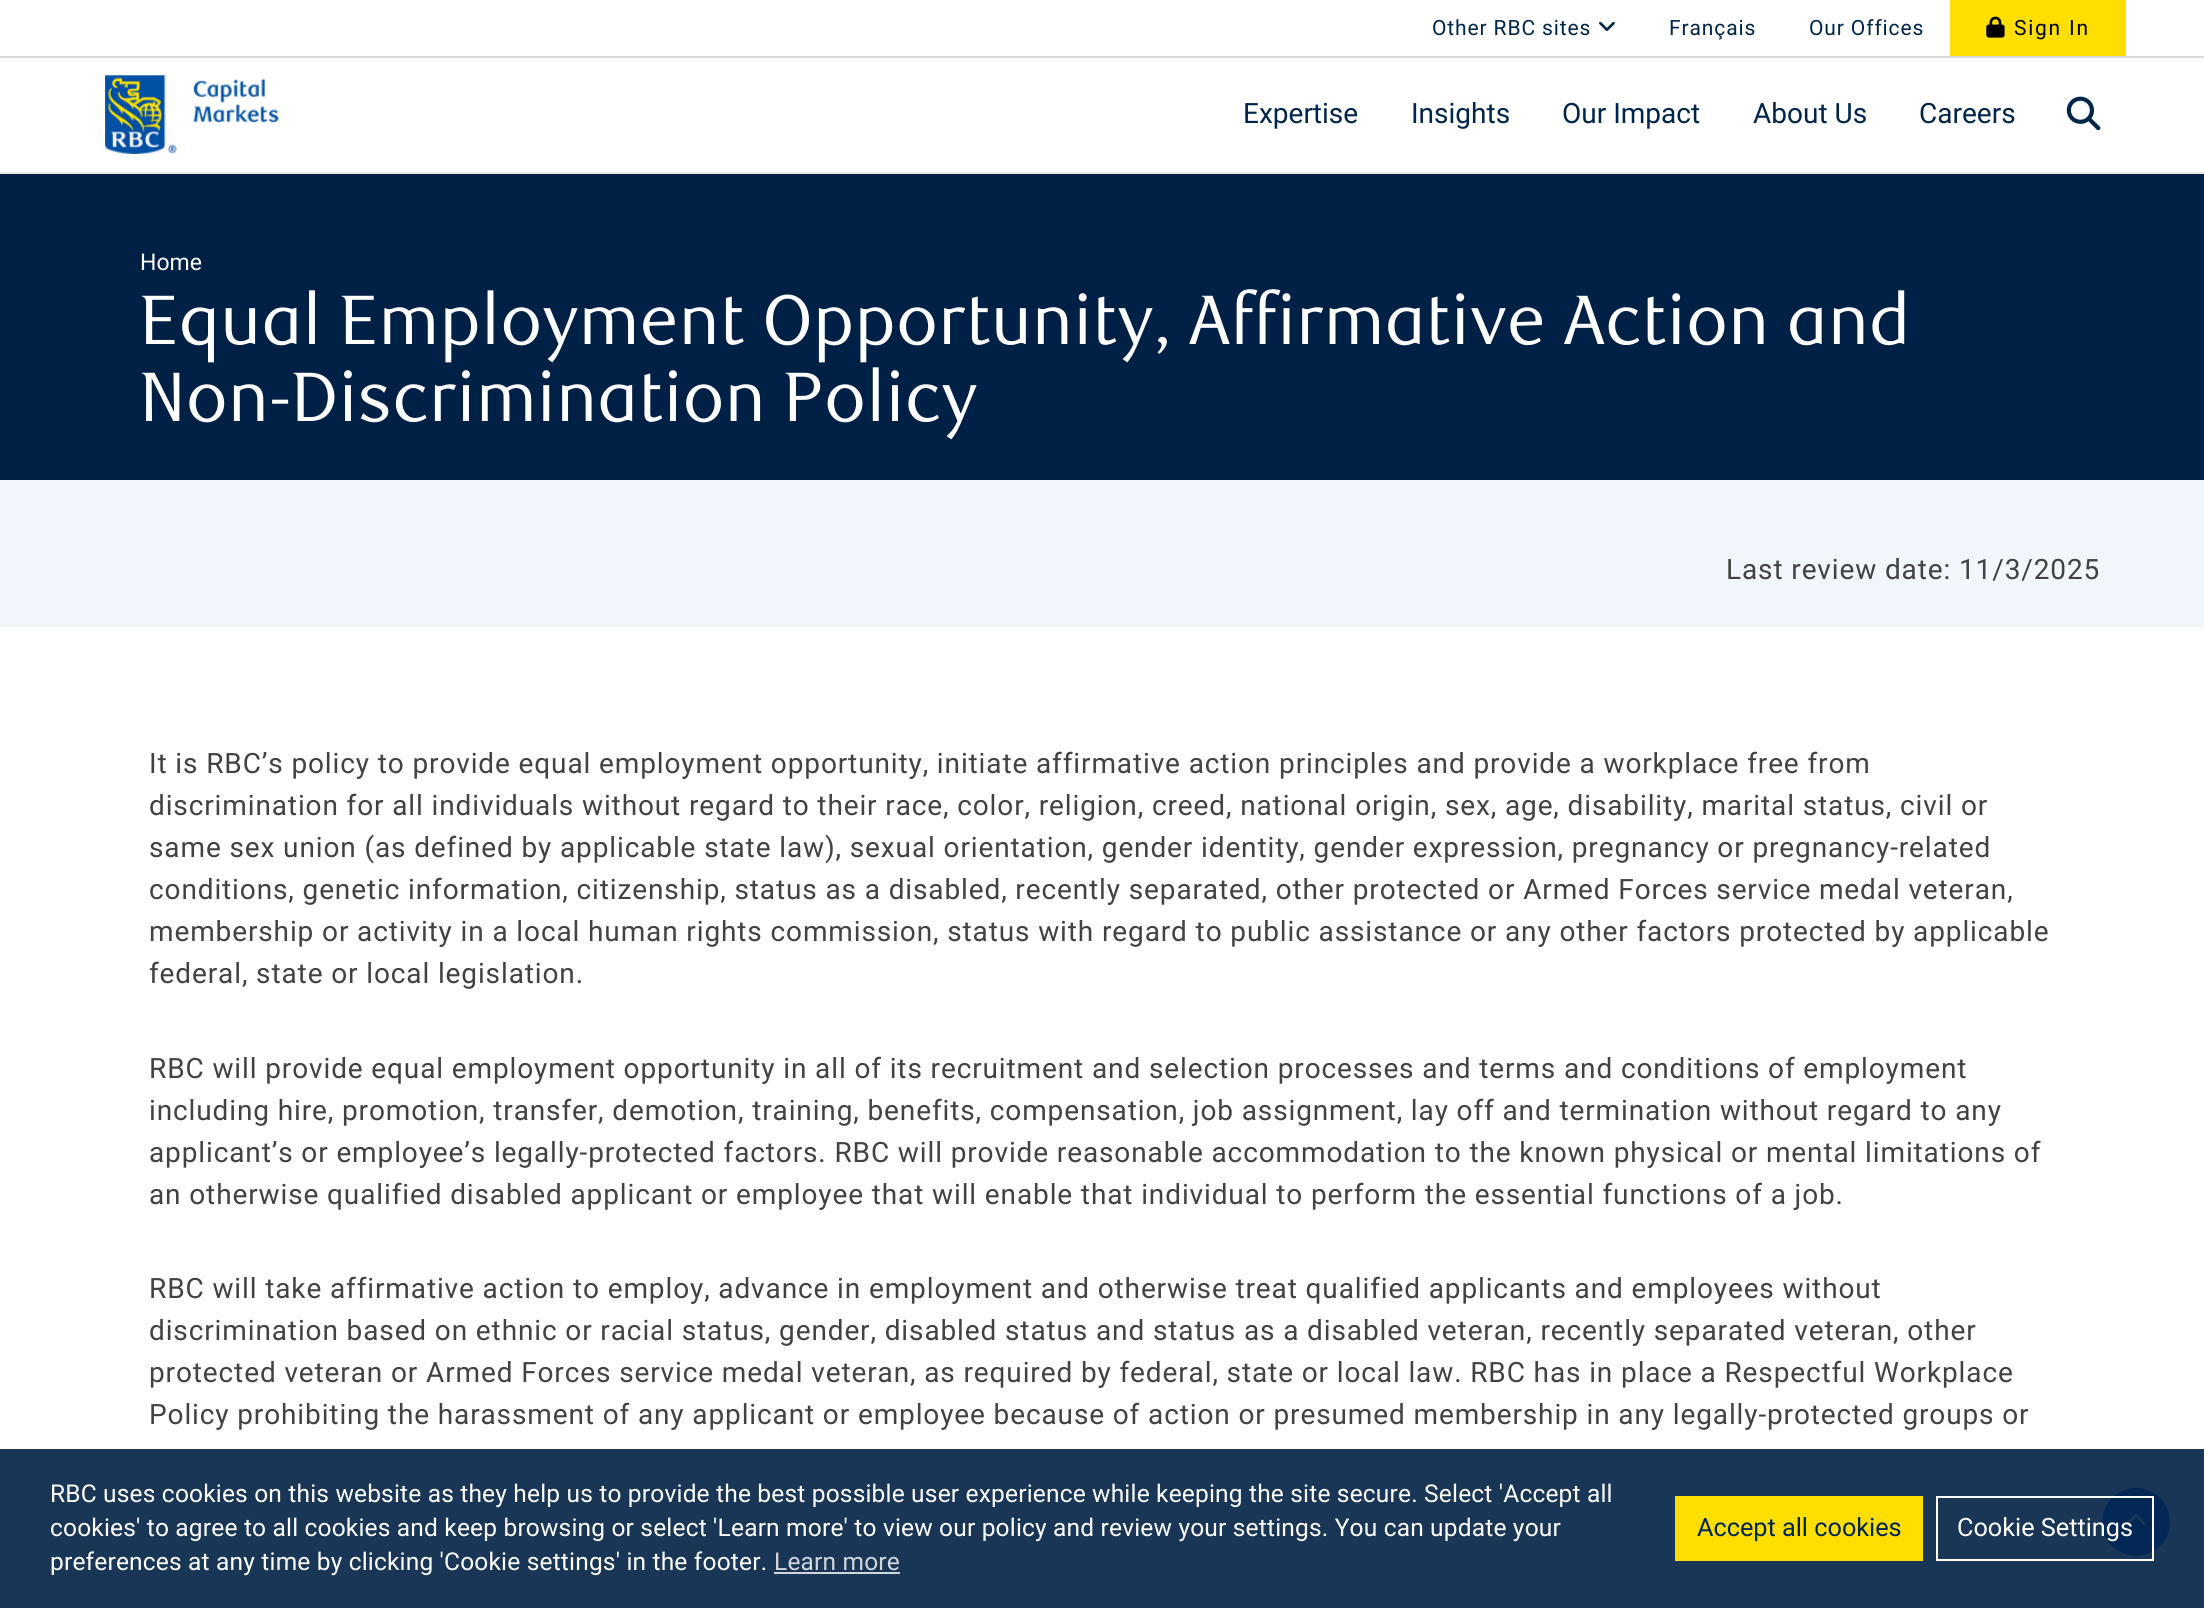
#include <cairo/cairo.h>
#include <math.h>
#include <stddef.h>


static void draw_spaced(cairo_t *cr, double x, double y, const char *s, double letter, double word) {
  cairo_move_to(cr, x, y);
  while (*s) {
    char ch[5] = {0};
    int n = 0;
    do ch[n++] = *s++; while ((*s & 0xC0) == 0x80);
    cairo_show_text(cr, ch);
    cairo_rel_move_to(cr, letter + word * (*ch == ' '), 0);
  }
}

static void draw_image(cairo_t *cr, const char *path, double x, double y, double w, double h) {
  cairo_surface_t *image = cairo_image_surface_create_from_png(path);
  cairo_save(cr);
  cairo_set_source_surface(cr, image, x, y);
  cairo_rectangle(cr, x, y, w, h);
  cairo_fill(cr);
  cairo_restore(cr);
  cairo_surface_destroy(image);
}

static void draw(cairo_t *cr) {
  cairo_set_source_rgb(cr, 1, 1, 1);
  cairo_paint(cr);
  cairo_set_source_rgb(cr, 231 / 255.0, 231 / 255.0, 231 / 255.0);
  cairo_rectangle(cr, 0, 172, 2204, 2);
  cairo_fill(cr);
  cairo_set_source_rgb(cr, 218 / 255.0, 218 / 255.0, 218 / 255.0);
  cairo_rectangle(cr, 0, 56, 2204, 2);
  cairo_fill(cr);
  draw_image(cr, "images/1.png", 1599, 21, 16, 10);
  cairo_set_source_rgb(cr, 254 / 255.0, 223 / 255.0, 1 / 255.0);
  cairo_rectangle(cr, 1950, 0, 176, 56);
  cairo_fill(cr);
  draw_image(cr, "images/2.png", 1986, 16, 19, 22);
  draw_image(cr, "images/3.png", 105, 75, 174, 79);
  draw_image(cr, "images/4.png", 2066, 96, 35, 35);
  cairo_set_source_rgb(cr, 0, 32 / 255.0, 69 / 255.0);
  cairo_rectangle(cr, 0, 174, 2204, 306);
  cairo_fill(cr);
  cairo_set_source_rgb(cr, 240 / 255.0, 246 / 255.0, 252 / 255.0);
  cairo_rectangle(cr, 0, 480, 2204, 147);
  cairo_fill(cr);
  cairo_set_source_rgb(cr, 43 / 255.0, 112 / 255.0, 250 / 255.0);
  cairo_arc(cr, 2136, 1522, 34, 0, 2 * M_PI);
  cairo_fill(cr);
  draw_image(cr, "images/5.png", 2125, 1513, 21, 13);
  cairo_set_source_rgba(cr, 0, 33 / 255.0, 68 / 255.0, 0.9);
  cairo_rectangle(cr, 0, 1449, 2204, 159);
  cairo_fill(cr);
  cairo_set_source_rgb(cr, 209 / 255.0, 215 / 255.0, 221 / 255.0);
  cairo_rectangle(cr, 774, 1572, 126, 2);
  cairo_fill(cr);
  cairo_set_source_rgb(cr, 254 / 255.0, 223 / 255.0, 1 / 255.0);
  cairo_rectangle(cr, 1675, 1496, 248, 65);
  cairo_fill(cr);
  cairo_rectangle(cr, 1937, 1497, 216, 63);
  cairo_set_source_rgb(cr, 1, 1, 1);
  cairo_stroke(cr);
  cairo_select_font_face(cr, "Roboto", CAIRO_FONT_SLANT_NORMAL, CAIRO_FONT_WEIGHT_NORMAL);
  cairo_set_font_size(cr, 21);
  cairo_set_source_rgb(cr, 0, 37 / 255.0, 75 / 255.0);
  draw_spaced(cr, 1432, 35, "Other RBC sites", 0.88, 0);
  draw_spaced(cr, 1669, 35, "Français", 0.88, 0);
  draw_spaced(cr, 1809, 35, "Our Offices", 0.88, 0);
  cairo_set_source_rgb(cr, 0, 0, 0);
  draw_spaced(cr, 2014, 35, "Sign In", 1.75, 0);
  cairo_set_font_size(cr, 28);
  cairo_set_source_rgb(cr, 0, 37 / 255.0, 75 / 255.0);
  cairo_move_to(cr, 1243, 123);
  cairo_show_text(cr, "Expertise");
  cairo_move_to(cr, 1411, 123);
  cairo_show_text(cr, "Insights");
  cairo_move_to(cr, 1562, 123);
  cairo_show_text(cr, "Our Impact");
  cairo_move_to(cr, 1753, 123);
  cairo_show_text(cr, "About Us");
  cairo_move_to(cr, 1919, 123);
  cairo_show_text(cr, "Careers");
  cairo_set_font_size(cr, 23);
  cairo_set_source_rgb(cr, 1, 1, 1);
  cairo_move_to(cr, 140, 270);
  cairo_show_text(cr, "Home");
  cairo_select_font_face(cr, "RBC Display", CAIRO_FONT_SLANT_NORMAL, CAIRO_FONT_WEIGHT_NORMAL);
  cairo_set_font_size(cr, 70);
  draw_spaced(cr, 140, 344, "Equal Employment Opportunity, Affirmative Action and", 0.88, 0);
  draw_spaced(cr, 140, 421, "Non-Discrimination Policy", 0.88, 0);
  cairo_select_font_face(cr, "Roboto", CAIRO_FONT_SLANT_NORMAL, CAIRO_FONT_WEIGHT_NORMAL);
  cairo_set_font_size(cr, 28);
  cairo_set_source_rgb(cr, 66 / 255.0, 66 / 255.0, 66 / 255.0);
  draw_spaced(cr, 1726, 579, "Last review date: 11/3/2025", 0.88, 0);
  draw_spaced(cr, 149, 773, "It is RBC’s policy to provide equal employment opportunity, initiate affirmative action principles and provide a workplace free from", 0.88, 0);
  draw_spaced(cr, 149, 815, "discrimination for all individuals without regard to their race, color, religion, creed, national origin, sex, age, disability, marital status, civil or", 0.88, 0);
  draw_spaced(cr, 149, 857, "same sex union (as defined by applicable state law), sexual orientation, gender identity, gender expression, pregnancy or pregnancy-related", 0.88, 0);
  draw_spaced(cr, 149, 899, "conditions, genetic information, citizenship, status as a disabled, recently separated, other protected or Armed Forces service medal veteran,", 0.88, 0);
  draw_spaced(cr, 149, 941, "membership or activity in a local human rights commission, status with regard to public assistance or any other factors protected by applicable", 0.88, 0);
  draw_spaced(cr, 149, 983, "federal, state or local legislation.", 0.88, 0);
  draw_spaced(cr, 149, 1078, "RBC will provide equal employment opportunity in all of its recruitment and selection processes and terms and conditions of employment", 0.88, 0);
  draw_spaced(cr, 149, 1120, "including hire, promotion, transfer, demotion, training, benefits, compensation, job assignment, lay off and termination without regard to any", 0.88, 0);
  draw_spaced(cr, 149, 1162, "applicant’s or employee’s legally-protected factors. RBC will provide reasonable accommodation to the known physical or mental limitations of", 0.88, 0);
  draw_spaced(cr, 149, 1204, "an otherwise qualified disabled applicant or employee that will enable that individual to perform the essential functions of a job.", 0.88, 0);
  draw_spaced(cr, 149, 1298, "RBC will take affirmative action to employ, advance in employment and otherwise treat qualified applicants and employees without", 0.88, 0);
  draw_spaced(cr, 149, 1340, "discrimination based on ethnic or racial status, gender, disabled status and status as a disabled veteran, recently separated veteran, other", 0.88, 0);
  draw_spaced(cr, 149, 1382, "protected veteran or Armed Forces service medal veteran, as required by federal, state or local law. RBC has in place a Respectful Workplace", 0.88, 0);
  draw_spaced(cr, 149, 1424, "Policy prohibiting the harassment of any applicant or employee because of action or presumed membership in any legally-protected groups or", 0.88, 0);
  cairo_set_font_size(cr, 24.5);
  cairo_set_source_rgb(cr, 1, 1, 1);
  draw_spaced(cr, 50, 1502, "RBC uses cookies on this website as they help us to provide the best possible user experience while keeping the site secure. Select 'Accept all", 0.18, 0);
  draw_spaced(cr, 50, 1536, "cookies' to agree to all cookies and keep browsing or select 'Learn more' to view our policy and review your settings. You can update your", 0.18, 0);
  draw_spaced(cr, 50, 1570, "preferences at any time by clicking 'Cookie settings' in the footer.", 0.18, 0);
  cairo_set_source_rgb(cr, 209 / 255.0, 214 / 255.0, 221 / 255.0);
  draw_spaced(cr, 774, 1570, "Learn more", 0.18, 0);
  cairo_set_font_size(cr, 25.25);
  cairo_set_source_rgb(cr, 0, 37 / 255.0, 75 / 255.0);
  cairo_move_to(cr, 1697, 1536);
  cairo_show_text(cr, "Accept all cookies");
  cairo_set_source_rgb(cr, 1, 1, 1);
  cairo_move_to(cr, 1957, 1536);
  cairo_show_text(cr, "Cookie Settings");
}

int main(void) {
  cairo_surface_t *surface = cairo_image_surface_create(CAIRO_FORMAT_RGB24, 2204, 1608);
  cairo_t *cr = cairo_create(surface);
  cairo_font_options_t *options = cairo_font_options_create();
  cairo_font_options_set_hint_metrics(options, CAIRO_HINT_METRICS_OFF);
  cairo_font_options_set_hint_style(options, CAIRO_HINT_STYLE_NONE);
  cairo_set_font_options(cr, options);
  cairo_set_miter_limit(cr, 4);
  draw(cr);
  cairo_surface_write_to_png(surface, "out.png");
  cairo_font_options_destroy(options);
  cairo_destroy(cr);
  cairo_surface_destroy(surface);
  return 0;
}
